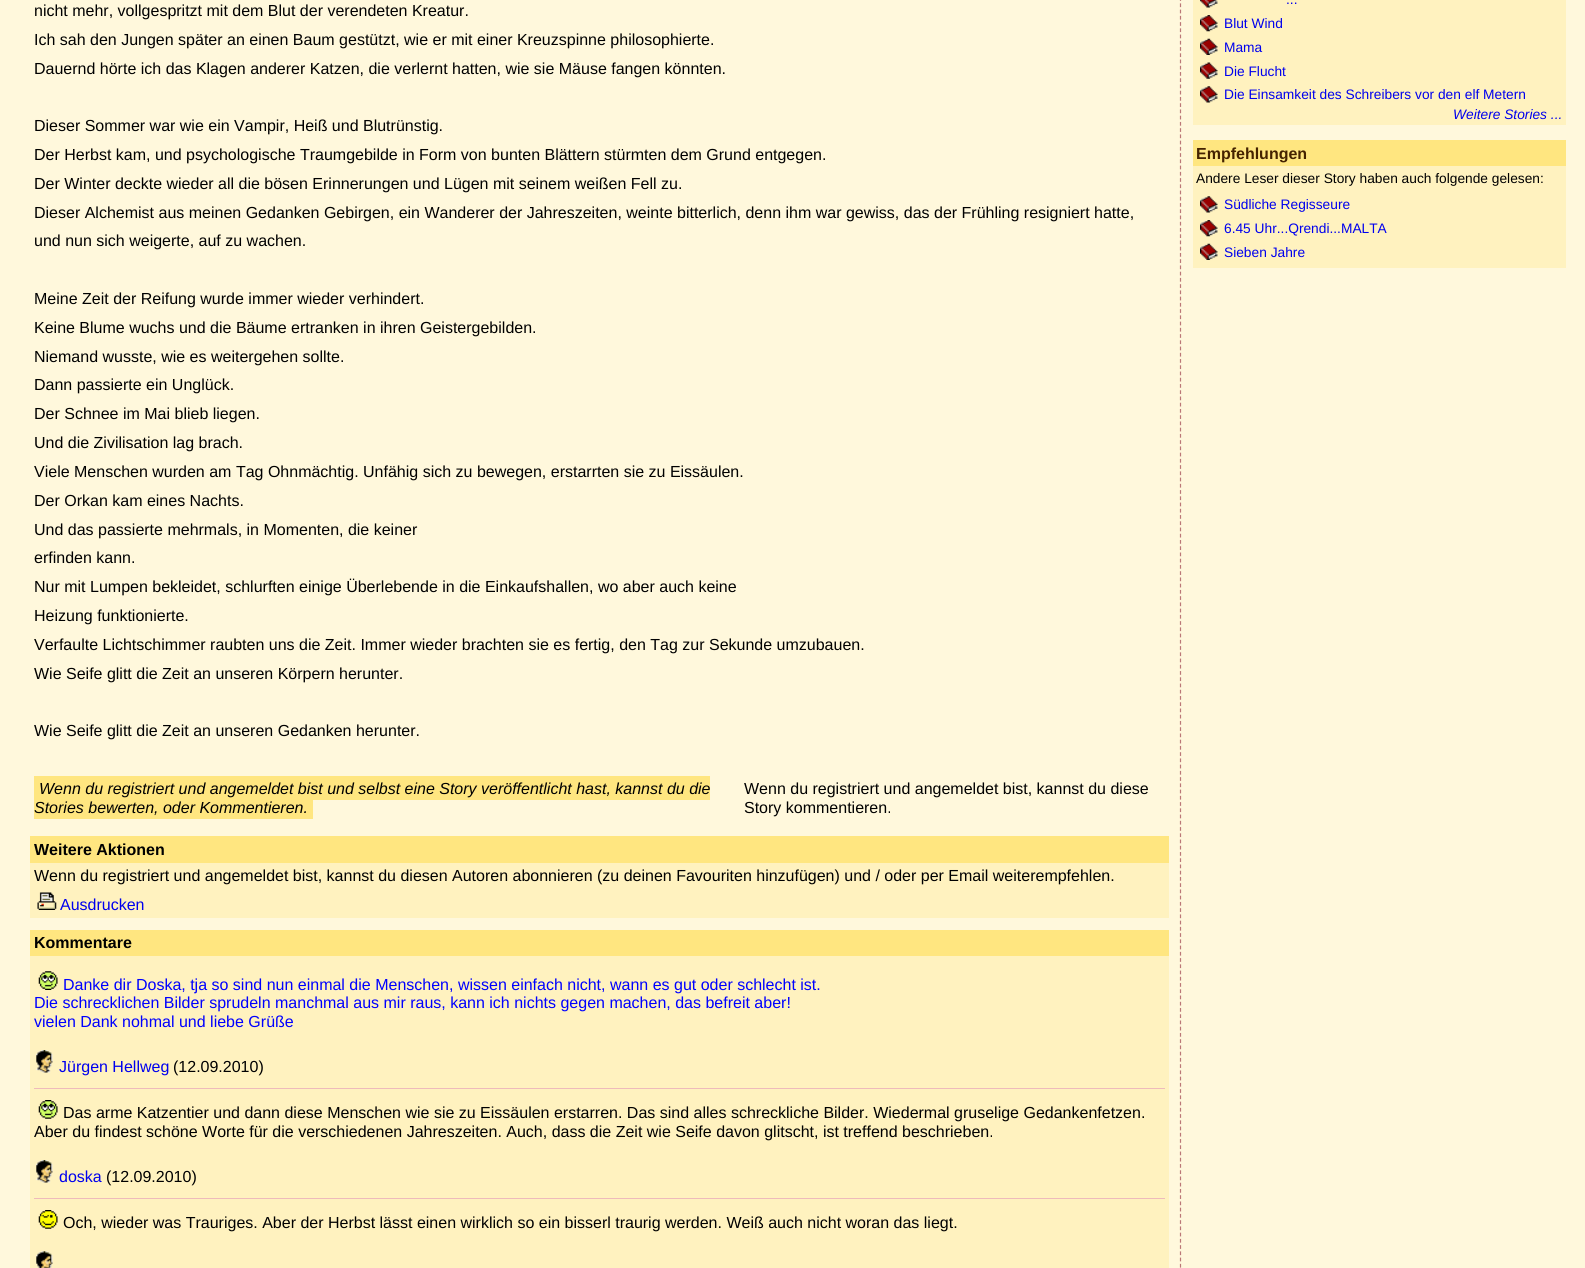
#include <cairo/cairo.h>
#include <math.h>
#include <stddef.h>


static void draw_image(cairo_t *cr, const char *path, double x, double y, double w, double h) {
  cairo_surface_t *image = cairo_image_surface_create_from_png(path);
  cairo_save(cr);
  cairo_set_source_surface(cr, image, x, y);
  cairo_rectangle(cr, x, y, w, h);
  cairo_fill(cr);
  cairo_restore(cr);
  cairo_surface_destroy(image);
}

static void draw(cairo_t *cr) {
  cairo_set_source_rgb(cr, 1, 248 / 255.0, 220 / 255.0);
  cairo_paint(cr);
  cairo_set_source_rgb(cr, 1, 230 / 255.0, 128 / 255.0);
  cairo_rectangle(cr, 34, 776, 676, 24);
  cairo_fill(cr);
  cairo_rectangle(cr, 34, 800, 279, 19);
  cairo_fill(cr);
  cairo_rectangle(cr, 30, 836, 1139, 27);
  cairo_fill(cr);
  cairo_set_source_rgb(cr, 1, 242 / 255.0, 191 / 255.0);
  cairo_rectangle(cr, 30, 863, 1139, 55);
  cairo_fill(cr);
  draw_image(cr, "images/1.png", 37, 892, 20, 18);
  cairo_set_source_rgb(cr, 1, 230 / 255.0, 128 / 255.0);
  cairo_rectangle(cr, 30, 930, 1139, 26);
  cairo_fill(cr);
  cairo_set_source_rgb(cr, 1, 242 / 255.0, 191 / 255.0);
  cairo_rectangle(cr, 30, 956, 1139, 312);
  cairo_fill(cr);
  cairo_set_source_rgb(cr, 238 / 255.0, 187 / 255.0, 187 / 255.0);
  cairo_rectangle(cr, 34, 1088, 1131, 1);
  cairo_fill(cr);
  draw_image(cr, "images/2.png", 38, 971, 20, 19);
  draw_image(cr, "images/3.png", 36, 1050, 17, 23);
  cairo_rectangle(cr, 34, 1198, 1131, 1);
  cairo_fill(cr);
  draw_image(cr, "images/4.png", 38, 1100, 20, 19);
  draw_image(cr, "images/3.png", 36, 1160, 17, 23);
  draw_image(cr, "images/5.png", 38, 1210, 20, 19);
  draw_image(cr, "images/6.png", 36, 1251, 17, 17);
  cairo_new_path(cr);
  cairo_move_to(cr, 1180.5, -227.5);
  cairo_line_to(cr, 1180.5, 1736);
  cairo_set_source_rgb(cr, 187 / 255.0, 119 / 255.0, 119 / 255.0);
  cairo_set_line_width(cr, 1.2);
  cairo_set_dash(cr, (double[]){3.75, 2.49}, 2, 0);
  cairo_stroke(cr);
  cairo_set_source_rgb(cr, 1, 242 / 255.0, 191 / 255.0);
  cairo_rectangle(cr, 1193, 0, 373, 125);
  cairo_fill(cr);
  draw_image(cr, "images/7.png", 1200, 0, 18, 8);
  draw_image(cr, "images/8.png", 1200, 15, 18, 17);
  draw_image(cr, "images/9.png", 1200, 38, 18, 17);
  draw_image(cr, "images/10.png", 1200, 62, 18, 17);
  draw_image(cr, "images/11.png", 1200, 86, 18, 17);
  cairo_rectangle(cr, 1193, 166, 373, 102);
  cairo_fill(cr);
  cairo_set_source_rgb(cr, 1, 230 / 255.0, 128 / 255.0);
  cairo_rectangle(cr, 1193, 140, 373, 26);
  cairo_fill(cr);
  draw_image(cr, "images/11.png", 1200, 196, 18, 17);
  draw_image(cr, "images/8.png", 1200, 220, 18, 17);
  draw_image(cr, "images/9.png", 1200, 243, 18, 17);
  cairo_select_font_face(cr, "Liberation Sans", CAIRO_FONT_SLANT_NORMAL, CAIRO_FONT_WEIGHT_NORMAL);
  cairo_set_font_size(cr, 16);
  cairo_set_source_rgb(cr, 0, 0, 0);
  cairo_move_to(cr, 34, 16);
  cairo_show_text(cr, "nicht mehr, vollgespritzt mit dem Blut der verendeten Kreatur.");
  cairo_move_to(cr, 34, 45);
  cairo_show_text(cr, "Ich sah den Jungen später an einen Baum gestützt, wie er mit einer Kreuzspinne philosophierte.");
  cairo_move_to(cr, 34, 74);
  cairo_show_text(cr, "Dauernd hörte ich das Klagen anderer Katzen, die verlernt hatten, wie sie Mäuse fangen könnten.");
  cairo_move_to(cr, 34, 131);
  cairo_show_text(cr, "Dieser Sommer war wie ein Vampir, Heiß und Blutrünstig.");
  cairo_move_to(cr, 34, 160);
  cairo_show_text(cr, "Der Herbst kam, und psychologische Traumgebilde in Form von bunten Blättern stürmten dem Grund entgegen.");
  cairo_move_to(cr, 34, 189);
  cairo_show_text(cr, "Der Winter deckte wieder all die bösen Erinnerungen und Lügen mit seinem weißen Fell zu.");
  cairo_move_to(cr, 34, 218);
  cairo_show_text(cr, "Dieser Alchemist aus meinen Gedanken Gebirgen, ein Wanderer der Jahreszeiten, weinte bitterlich, denn ihm war gewiss, das der Frühling resigniert hatte,");
  cairo_move_to(cr, 34, 246);
  cairo_show_text(cr, "und nun sich weigerte, auf zu wachen.");
  cairo_move_to(cr, 34, 304);
  cairo_show_text(cr, "Meine Zeit der Reifung wurde immer wieder verhindert.");
  cairo_move_to(cr, 34, 333);
  cairo_show_text(cr, "Keine Blume wuchs und die Bäume ertranken in ihren Geistergebilden.");
  cairo_move_to(cr, 34, 362);
  cairo_show_text(cr, "Niemand wusste, wie es weitergehen sollte.");
  cairo_move_to(cr, 34, 390);
  cairo_show_text(cr, "Dann passierte ein Unglück.");
  cairo_move_to(cr, 34, 419);
  cairo_show_text(cr, "Der Schnee im Mai blieb liegen.");
  cairo_move_to(cr, 34, 448);
  cairo_show_text(cr, "Und die Zivilisation lag brach.");
  cairo_move_to(cr, 34, 477);
  cairo_show_text(cr, "Viele Menschen wurden am Tag Ohnmächtig. Unfähig sich zu bewegen, erstarrten sie zu Eissäulen.");
  cairo_move_to(cr, 34, 506);
  cairo_show_text(cr, "Der Orkan kam eines Nachts.");
  cairo_move_to(cr, 34, 535);
  cairo_show_text(cr, "Und das passierte mehrmals, in Momenten, die keiner");
  cairo_move_to(cr, 34, 563);
  cairo_show_text(cr, "erfinden kann.");
  cairo_move_to(cr, 34, 592);
  cairo_show_text(cr, "Nur mit Lumpen bekleidet, schlurften einige Überlebende in die Einkaufshallen, wo aber auch keine");
  cairo_move_to(cr, 34, 621);
  cairo_show_text(cr, "Heizung funktionierte.");
  cairo_move_to(cr, 34, 650);
  cairo_show_text(cr, "Verfaulte Lichtschimmer raubten uns die Zeit. Immer wieder brachten sie es fertig, den Tag zur Sekunde umzubauen.");
  cairo_move_to(cr, 34, 679);
  cairo_show_text(cr, "Wie Seife glitt die Zeit an unseren Körpern herunter.");
  cairo_move_to(cr, 34, 736);
  cairo_show_text(cr, "Wie Seife glitt die Zeit an unseren Gedanken herunter.");
  cairo_select_font_face(cr, "Liberation Sans", CAIRO_FONT_SLANT_ITALIC, CAIRO_FONT_WEIGHT_NORMAL);
  cairo_move_to(cr, 39, 794);
  cairo_show_text(cr, "Wenn du registriert und angemeldet bist und selbst eine Story veröffentlicht hast, kannst du die");
  cairo_move_to(cr, 34, 813);
  cairo_show_text(cr, "Stories bewerten, oder Kommentieren.");
  cairo_select_font_face(cr, "Liberation Sans", CAIRO_FONT_SLANT_NORMAL, CAIRO_FONT_WEIGHT_NORMAL);
  cairo_move_to(cr, 744, 794);
  cairo_show_text(cr, "Wenn du registriert und angemeldet bist, kannst du diese");
  cairo_move_to(cr, 744, 813);
  cairo_show_text(cr, "Story kommentieren.");
  cairo_select_font_face(cr, "Liberation Sans", CAIRO_FONT_SLANT_NORMAL, CAIRO_FONT_WEIGHT_BOLD);
  cairo_move_to(cr, 34, 855);
  cairo_show_text(cr, "Weitere Aktionen");
  cairo_select_font_face(cr, "Liberation Sans", CAIRO_FONT_SLANT_NORMAL, CAIRO_FONT_WEIGHT_NORMAL);
  cairo_move_to(cr, 34, 881);
  cairo_show_text(cr, "Wenn du registriert und angemeldet bist, kannst du diesen Autoren abonnieren (zu deinen Favouriten hinzufügen) und / oder per Email weiterempfehlen.");
  cairo_set_source_rgb(cr, 0, 0, 238 / 255.0);
  cairo_move_to(cr, 60, 910);
  cairo_show_text(cr, "Ausdrucken");
  cairo_select_font_face(cr, "Liberation Sans", CAIRO_FONT_SLANT_NORMAL, CAIRO_FONT_WEIGHT_BOLD);
  cairo_set_source_rgb(cr, 0, 0, 0);
  cairo_move_to(cr, 34, 948);
  cairo_show_text(cr, "Kommentare");
  cairo_select_font_face(cr, "Liberation Sans", CAIRO_FONT_SLANT_NORMAL, CAIRO_FONT_WEIGHT_NORMAL);
  cairo_set_source_rgb(cr, 0, 0, 1);
  cairo_move_to(cr, 63, 990);
  cairo_show_text(cr, "Danke dir Doska, tja so sind nun einmal die Menschen, wissen einfach nicht, wann es gut oder schlecht ist.");
  cairo_move_to(cr, 34, 1008);
  cairo_show_text(cr, "Die schrecklichen Bilder sprudeln manchmal aus mir raus, kann ich nichts gegen machen, das befreit aber!");
  cairo_move_to(cr, 34, 1027);
  cairo_show_text(cr, "vielen Dank nohmal und liebe Grüße");
  cairo_set_source_rgb(cr, 0, 0, 238 / 255.0);
  cairo_move_to(cr, 59, 1072);
  cairo_show_text(cr, "Jürgen Hellweg");
  cairo_set_source_rgb(cr, 0, 0, 0);
  cairo_move_to(cr, 173, 1072);
  cairo_show_text(cr, "(12.09.2010)");
  cairo_move_to(cr, 63, 1118);
  cairo_show_text(cr, "Das arme Katzentier und dann diese Menschen wie sie zu Eissäulen erstarren. Das sind alles schreckliche Bilder. Wiedermal gruselige Gedankenfetzen.");
  cairo_move_to(cr, 34, 1137);
  cairo_show_text(cr, "Aber du findest schöne Worte für die verschiedenen Jahreszeiten. Auch, dass die Zeit wie Seife davon glitscht, ist treffend beschrieben.");
  cairo_set_source_rgb(cr, 0, 0, 238 / 255.0);
  cairo_move_to(cr, 59, 1182);
  cairo_show_text(cr, "doska");
  cairo_set_source_rgb(cr, 0, 0, 0);
  cairo_move_to(cr, 106, 1182);
  cairo_show_text(cr, "(12.09.2010)");
  cairo_move_to(cr, 63, 1228);
  cairo_show_text(cr, "Och, wieder was Trauriges. Aber der Herbst lässt einen wirklich so ein bisserl traurig werden. Weiß auch nicht woran das liegt.");
  cairo_set_font_size(cr, 13.75);
  cairo_set_source_rgb(cr, 0, 0, 238 / 255.0);
  cairo_move_to(cr, 1286, 4);
  cairo_show_text(cr, "...");
  cairo_move_to(cr, 1224, 28);
  cairo_show_text(cr, "Blut Wind");
  cairo_move_to(cr, 1224, 52);
  cairo_show_text(cr, "Mama");
  cairo_move_to(cr, 1224, 76);
  cairo_show_text(cr, "Die Flucht");
  cairo_move_to(cr, 1224, 99);
  cairo_show_text(cr, "Die Einsamkeit des Schreibers vor den elf Metern");
  cairo_select_font_face(cr, "Liberation Sans", CAIRO_FONT_SLANT_ITALIC, CAIRO_FONT_WEIGHT_NORMAL);
  cairo_move_to(cr, 1453, 119);
  cairo_show_text(cr, "Weitere Stories ...");
  cairo_select_font_face(cr, "Liberation Sans", CAIRO_FONT_SLANT_NORMAL, CAIRO_FONT_WEIGHT_BOLD);
  cairo_set_font_size(cr, 16);
  cairo_set_source_rgb(cr, 68 / 255.0, 34 / 255.0, 0);
  cairo_move_to(cr, 1196, 159);
  cairo_show_text(cr, "Empfehlungen");
  cairo_select_font_face(cr, "Liberation Sans", CAIRO_FONT_SLANT_NORMAL, CAIRO_FONT_WEIGHT_NORMAL);
  cairo_set_font_size(cr, 13.75);
  cairo_set_source_rgb(cr, 0, 0, 0);
  cairo_move_to(cr, 1196, 183);
  cairo_show_text(cr, "Andere Leser dieser Story haben auch folgende gelesen:");
  cairo_set_source_rgb(cr, 0, 0, 238 / 255.0);
  cairo_move_to(cr, 1224, 209);
  cairo_show_text(cr, "Südliche Regisseure");
  cairo_move_to(cr, 1224, 233);
  cairo_show_text(cr, "6.45 Uhr...Qrendi...MALTA");
  cairo_move_to(cr, 1224, 257);
  cairo_show_text(cr, "Sieben Jahre");
}

int main(void) {
  cairo_surface_t *surface = cairo_image_surface_create(CAIRO_FORMAT_RGB24, 1585, 1268);
  cairo_t *cr = cairo_create(surface);
  cairo_font_options_t *options = cairo_font_options_create();
  cairo_font_options_set_hint_metrics(options, CAIRO_HINT_METRICS_OFF);
  cairo_font_options_set_hint_style(options, CAIRO_HINT_STYLE_NONE);
  cairo_set_font_options(cr, options);
  cairo_set_miter_limit(cr, 4);
  draw(cr);
  cairo_surface_write_to_png(surface, "out.png");
  cairo_font_options_destroy(options);
  cairo_destroy(cr);
  cairo_surface_destroy(surface);
  return 0;
}
